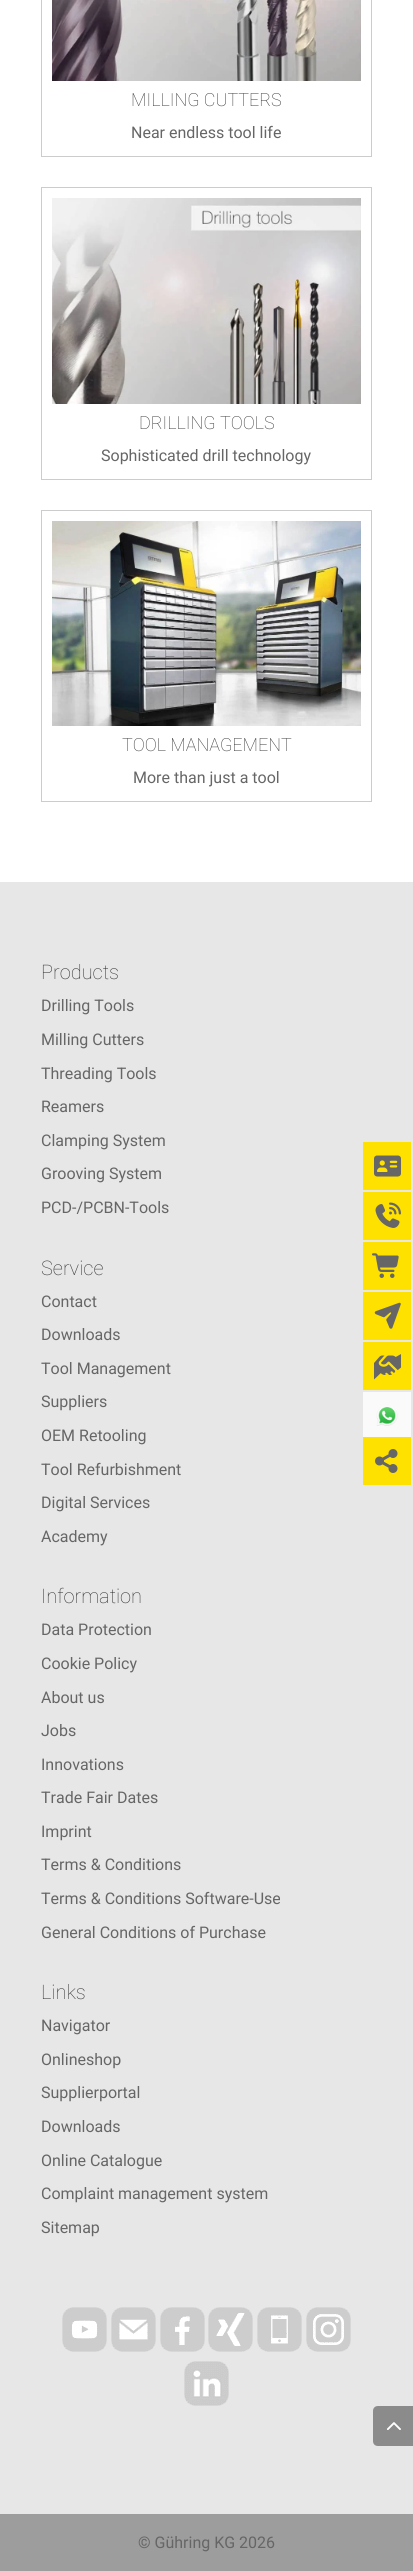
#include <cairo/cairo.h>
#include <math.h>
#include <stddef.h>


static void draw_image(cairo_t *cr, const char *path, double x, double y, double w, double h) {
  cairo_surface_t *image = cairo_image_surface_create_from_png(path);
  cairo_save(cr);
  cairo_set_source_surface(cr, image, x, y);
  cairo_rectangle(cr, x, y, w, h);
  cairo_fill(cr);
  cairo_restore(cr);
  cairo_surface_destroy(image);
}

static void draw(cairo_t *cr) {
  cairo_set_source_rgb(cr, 1, 1, 1);
  cairo_paint(cr);
  cairo_rectangle(cr, 41.5, -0.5, 330, 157);
  cairo_set_source_rgb(cr, 204 / 255.0, 204 / 255.0, 204 / 255.0);
  cairo_set_line_width(cr, 1);
  cairo_stroke(cr);
  draw_image(cr, "images/1.png", 52, 0, 309, 81);
  cairo_rectangle(cr, 41.5, 187.5, 330, 292);
  cairo_stroke(cr);
  draw_image(cr, "images/2.png", 52, 198, 309, 206);
  cairo_rectangle(cr, 41.5, 510.5, 330, 291);
  cairo_stroke(cr);
  draw_image(cr, "images/3.png", 52, 521, 309, 205);
  cairo_set_source_rgb(cr, 231 / 255.0, 231 / 255.0, 232 / 255.0);
  cairo_rectangle(cr, 0, 882, 413, 1632);
  cairo_fill(cr);
  draw_image(cr, "images/4.png", 62, 2307, 45, 45);
  draw_image(cr, "images/5.png", 111, 2307, 45, 45);
  draw_image(cr, "images/6.png", 160, 2307, 45, 45);
  draw_image(cr, "images/7.png", 208, 2307, 45, 45);
  draw_image(cr, "images/8.png", 257, 2307, 45, 45);
  draw_image(cr, "images/9.png", 306, 2307, 45, 45);
  draw_image(cr, "images/10.png", 184, 2361, 45, 45);
  cairo_set_source_rgb(cr, 157 / 255.0, 157 / 255.0, 158 / 255.0);
  cairo_rectangle(cr, 0, 2514, 413, 57);
  cairo_fill(cr);
  cairo_set_source_rgb(cr, 139 / 255.0, 139 / 255.0, 139 / 255.0);
  cairo_new_path(cr);
  cairo_move_to(cr, 378, 2406);
  cairo_line_to(cr, 413, 2406);
  cairo_line_to(cr, 413, 2446);
  cairo_line_to(cr, 378, 2446);
  cairo_curve_to(cr, 375, 2446, 373, 2444, 373, 2441);
  cairo_line_to(cr, 373, 2411);
  cairo_curve_to(cr, 373, 2408, 375, 2406, 378, 2406);
  cairo_close_path(cr);
  cairo_fill(cr);
  draw_image(cr, "images/11.png", 386, 2422, 15, 8);
  cairo_set_source_rgb(cr, 1, 225 / 255.0, 0);
  cairo_rectangle(cr, 363, 1142, 48, 48);
  cairo_fill(cr);
  draw_image(cr, "images/12.png", 374, 1155, 27, 22);
  cairo_rectangle(cr, 363, 1192, 48, 48);
  cairo_fill(cr);
  draw_image(cr, "images/13.png", 375, 1202, 26, 26);
  cairo_rectangle(cr, 363, 1242, 48, 48);
  cairo_fill(cr);
  draw_image(cr, "images/14.png", 372, 1253, 27, 25);
  cairo_rectangle(cr, 363, 1292, 48, 48);
  cairo_fill(cr);
  draw_image(cr, "images/15.png", 374, 1302, 27, 27);
  cairo_rectangle(cr, 363, 1342, 48, 48);
  cairo_fill(cr);
  draw_image(cr, "images/16.png", 374, 1354, 27, 26);
  cairo_set_source_rgb(cr, 250 / 255.0, 250 / 255.0, 250 / 255.0);
  cairo_rectangle(cr, 363, 1392, 48, 45);
  cairo_fill(cr);
  draw_image(cr, "images/17.png", 376, 1407, 22, 19);
  cairo_set_source_rgb(cr, 1, 225 / 255.0, 0);
  cairo_rectangle(cr, 363, 1437, 48, 48);
  cairo_fill(cr);
  draw_image(cr, "images/18.png", 375, 1449, 23, 24);
  cairo_select_font_face(cr, "Roboto Thin", CAIRO_FONT_SLANT_NORMAL, CAIRO_FONT_WEIGHT_NORMAL);
  cairo_set_font_size(cr, 18);
  cairo_set_source_rgb(cr, 51 / 255.0, 51 / 255.0, 51 / 255.0);
  cairo_move_to(cr, 131, 106);
  cairo_show_text(cr, "MILLING CUTTERS");
  cairo_select_font_face(cr, "Roboto", CAIRO_FONT_SLANT_NORMAL, CAIRO_FONT_WEIGHT_NORMAL);
  cairo_set_font_size(cr, 16);
  cairo_set_source_rgb(cr, 102 / 255.0, 102 / 255.0, 102 / 255.0);
  cairo_move_to(cr, 131, 138);
  cairo_show_text(cr, "Near endless tool life");
  cairo_select_font_face(cr, "Roboto Thin", CAIRO_FONT_SLANT_NORMAL, CAIRO_FONT_WEIGHT_NORMAL);
  cairo_set_font_size(cr, 18);
  cairo_set_source_rgb(cr, 51 / 255.0, 51 / 255.0, 51 / 255.0);
  cairo_move_to(cr, 139, 429);
  cairo_show_text(cr, "DRILLING TOOLS");
  cairo_select_font_face(cr, "Roboto", CAIRO_FONT_SLANT_NORMAL, CAIRO_FONT_WEIGHT_NORMAL);
  cairo_set_font_size(cr, 16);
  cairo_set_source_rgb(cr, 102 / 255.0, 102 / 255.0, 102 / 255.0);
  cairo_move_to(cr, 101, 461);
  cairo_show_text(cr, "Sophisticated drill technology");
  cairo_select_font_face(cr, "Roboto Thin", CAIRO_FONT_SLANT_NORMAL, CAIRO_FONT_WEIGHT_NORMAL);
  cairo_set_font_size(cr, 18);
  cairo_set_source_rgb(cr, 51 / 255.0, 51 / 255.0, 51 / 255.0);
  cairo_move_to(cr, 122, 751);
  cairo_show_text(cr, "TOOL MANAGEMENT");
  cairo_select_font_face(cr, "Roboto", CAIRO_FONT_SLANT_NORMAL, CAIRO_FONT_WEIGHT_NORMAL);
  cairo_set_font_size(cr, 16);
  cairo_set_source_rgb(cr, 102 / 255.0, 102 / 255.0, 102 / 255.0);
  cairo_move_to(cr, 133, 783);
  cairo_show_text(cr, "More than just a tool");
  cairo_select_font_face(cr, "Roboto Thin", CAIRO_FONT_SLANT_NORMAL, CAIRO_FONT_WEIGHT_NORMAL);
  cairo_set_font_size(cr, 20);
  cairo_set_source_rgb(cr, 51 / 255.0, 51 / 255.0, 51 / 255.0);
  cairo_move_to(cr, 41, 979);
  cairo_show_text(cr, "Products");
  cairo_select_font_face(cr, "Roboto", CAIRO_FONT_SLANT_NORMAL, CAIRO_FONT_WEIGHT_NORMAL);
  cairo_set_font_size(cr, 16);
  cairo_set_source_rgb(cr, 102 / 255.0, 102 / 255.0, 102 / 255.0);
  cairo_move_to(cr, 41, 1011);
  cairo_show_text(cr, "Drilling Tools");
  cairo_move_to(cr, 41, 1045);
  cairo_show_text(cr, "Milling Cutters");
  cairo_move_to(cr, 41, 1079);
  cairo_show_text(cr, "Threading Tools");
  cairo_move_to(cr, 41, 1112);
  cairo_show_text(cr, "Reamers");
  cairo_move_to(cr, 41, 1146);
  cairo_show_text(cr, "Clamping System");
  cairo_move_to(cr, 41, 1179);
  cairo_show_text(cr, "Grooving System");
  cairo_move_to(cr, 41, 1213);
  cairo_show_text(cr, "PCD-/PCBN-Tools");
  cairo_select_font_face(cr, "Roboto Thin", CAIRO_FONT_SLANT_NORMAL, CAIRO_FONT_WEIGHT_NORMAL);
  cairo_set_font_size(cr, 20);
  cairo_set_source_rgb(cr, 51 / 255.0, 51 / 255.0, 51 / 255.0);
  cairo_move_to(cr, 41, 1275);
  cairo_show_text(cr, "Service");
  cairo_select_font_face(cr, "Roboto", CAIRO_FONT_SLANT_NORMAL, CAIRO_FONT_WEIGHT_NORMAL);
  cairo_set_font_size(cr, 16);
  cairo_set_source_rgb(cr, 102 / 255.0, 102 / 255.0, 102 / 255.0);
  cairo_move_to(cr, 41, 1307);
  cairo_show_text(cr, "Contact");
  cairo_move_to(cr, 41, 1340);
  cairo_show_text(cr, "Downloads");
  cairo_move_to(cr, 41, 1374);
  cairo_show_text(cr, "Tool Management");
  cairo_move_to(cr, 41, 1407);
  cairo_show_text(cr, "Suppliers");
  cairo_move_to(cr, 41, 1441);
  cairo_show_text(cr, "OEM Retooling");
  cairo_move_to(cr, 41, 1475);
  cairo_show_text(cr, "Tool Refurbishment");
  cairo_move_to(cr, 41, 1508);
  cairo_show_text(cr, "Digital Services");
  cairo_move_to(cr, 41, 1542);
  cairo_show_text(cr, "Academy");
  cairo_select_font_face(cr, "Roboto Thin", CAIRO_FONT_SLANT_NORMAL, CAIRO_FONT_WEIGHT_NORMAL);
  cairo_set_font_size(cr, 20);
  cairo_set_source_rgb(cr, 51 / 255.0, 51 / 255.0, 51 / 255.0);
  cairo_move_to(cr, 41, 1603);
  cairo_show_text(cr, "Information");
  cairo_select_font_face(cr, "Roboto", CAIRO_FONT_SLANT_NORMAL, CAIRO_FONT_WEIGHT_NORMAL);
  cairo_set_font_size(cr, 16);
  cairo_set_source_rgb(cr, 102 / 255.0, 102 / 255.0, 102 / 255.0);
  cairo_move_to(cr, 41, 1635);
  cairo_show_text(cr, "Data Protection");
  cairo_move_to(cr, 41, 1669);
  cairo_show_text(cr, "Cookie Policy");
  cairo_move_to(cr, 41, 1703);
  cairo_show_text(cr, "About us");
  cairo_move_to(cr, 41, 1736);
  cairo_show_text(cr, "Jobs");
  cairo_move_to(cr, 41, 1770);
  cairo_show_text(cr, "Innovations");
  cairo_move_to(cr, 41, 1803);
  cairo_show_text(cr, "Trade Fair Dates");
  cairo_move_to(cr, 41, 1837);
  cairo_show_text(cr, "Imprint");
  cairo_move_to(cr, 41, 1870);
  cairo_show_text(cr, "Terms & Conditions");
  cairo_move_to(cr, 41, 1904);
  cairo_show_text(cr, "Terms & Conditions Software-Use");
  cairo_move_to(cr, 41, 1938);
  cairo_show_text(cr, "General Conditions of Purchase");
  cairo_select_font_face(cr, "Roboto Thin", CAIRO_FONT_SLANT_NORMAL, CAIRO_FONT_WEIGHT_NORMAL);
  cairo_set_font_size(cr, 20);
  cairo_set_source_rgb(cr, 51 / 255.0, 51 / 255.0, 51 / 255.0);
  cairo_move_to(cr, 41, 1999);
  cairo_show_text(cr, "Links");
  cairo_select_font_face(cr, "Roboto", CAIRO_FONT_SLANT_NORMAL, CAIRO_FONT_WEIGHT_NORMAL);
  cairo_set_font_size(cr, 16);
  cairo_set_source_rgb(cr, 102 / 255.0, 102 / 255.0, 102 / 255.0);
  cairo_move_to(cr, 41, 2031);
  cairo_show_text(cr, "Navigator");
  cairo_move_to(cr, 41, 2065);
  cairo_show_text(cr, "Onlineshop");
  cairo_move_to(cr, 41, 2098);
  cairo_show_text(cr, "Supplierportal");
  cairo_move_to(cr, 41, 2132);
  cairo_show_text(cr, "Downloads");
  cairo_move_to(cr, 41, 2166);
  cairo_show_text(cr, "Online Catalogue");
  cairo_move_to(cr, 41, 2199);
  cairo_show_text(cr, "Complaint management system");
  cairo_move_to(cr, 41, 2233);
  cairo_show_text(cr, "Sitemap");
  cairo_move_to(cr, 138, 2548);
  cairo_show_text(cr, "© Gühring KG 2026");
}

int main(void) {
  cairo_surface_t *surface = cairo_image_surface_create(CAIRO_FORMAT_RGB24, 413, 2571);
  cairo_t *cr = cairo_create(surface);
  cairo_font_options_t *options = cairo_font_options_create();
  cairo_font_options_set_hint_metrics(options, CAIRO_HINT_METRICS_OFF);
  cairo_font_options_set_hint_style(options, CAIRO_HINT_STYLE_NONE);
  cairo_set_font_options(cr, options);
  cairo_set_miter_limit(cr, 4);
  draw(cr);
  cairo_surface_write_to_png(surface, "out.png");
  cairo_font_options_destroy(options);
  cairo_destroy(cr);
  cairo_surface_destroy(surface);
  return 0;
}
